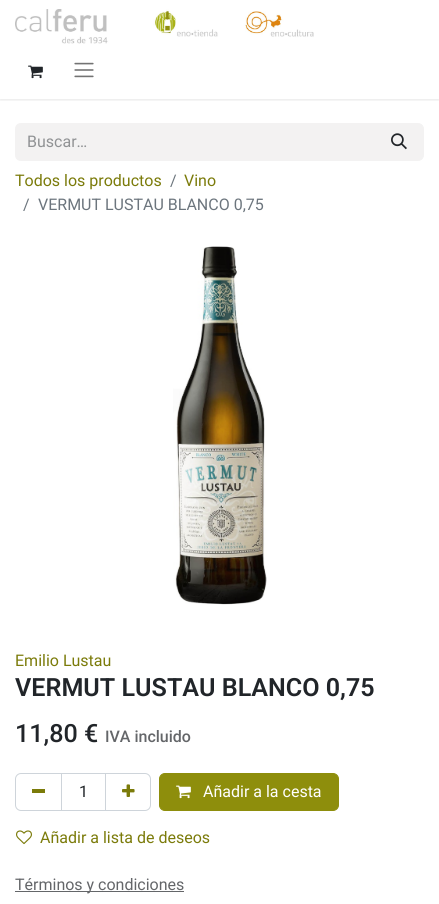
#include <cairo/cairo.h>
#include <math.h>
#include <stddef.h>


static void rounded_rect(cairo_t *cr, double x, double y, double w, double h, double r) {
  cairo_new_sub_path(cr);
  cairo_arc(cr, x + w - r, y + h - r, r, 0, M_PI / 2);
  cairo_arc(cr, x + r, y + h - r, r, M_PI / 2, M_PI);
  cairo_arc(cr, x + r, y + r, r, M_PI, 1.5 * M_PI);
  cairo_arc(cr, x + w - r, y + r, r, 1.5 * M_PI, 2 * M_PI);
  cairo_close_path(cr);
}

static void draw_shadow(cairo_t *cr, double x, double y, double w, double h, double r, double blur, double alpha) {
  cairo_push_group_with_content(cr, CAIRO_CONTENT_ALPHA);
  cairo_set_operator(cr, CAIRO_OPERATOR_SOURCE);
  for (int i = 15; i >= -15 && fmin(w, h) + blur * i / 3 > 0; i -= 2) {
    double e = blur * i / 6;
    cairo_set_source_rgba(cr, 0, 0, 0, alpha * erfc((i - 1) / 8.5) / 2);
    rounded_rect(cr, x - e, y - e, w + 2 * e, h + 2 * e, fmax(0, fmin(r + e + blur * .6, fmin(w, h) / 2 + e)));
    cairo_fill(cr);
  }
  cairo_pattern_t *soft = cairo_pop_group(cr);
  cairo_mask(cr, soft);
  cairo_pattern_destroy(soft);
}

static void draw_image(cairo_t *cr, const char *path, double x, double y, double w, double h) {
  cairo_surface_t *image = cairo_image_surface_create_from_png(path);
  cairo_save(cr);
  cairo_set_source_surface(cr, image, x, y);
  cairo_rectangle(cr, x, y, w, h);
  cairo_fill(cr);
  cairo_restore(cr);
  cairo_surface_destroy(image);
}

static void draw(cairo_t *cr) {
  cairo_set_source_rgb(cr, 1, 1, 1);
  cairo_paint(cr);
  cairo_save(cr);
  cairo_rectangle(cr, 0, 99, 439, 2);
  cairo_clip(cr);
  cairo_set_source_rgb(cr, 0, 0, 0);
  draw_shadow(cr, 0, 1, 439, 99, 0, 1.5, 0.1);
  cairo_restore(cr);
  draw_image(cr, "images/1.png", 15, 9, 299, 35);
  draw_image(cr, "images/2.png", 28, 65, 15, 14);
  draw_image(cr, "images/3.png", 74, 62, 20, 16);
  cairo_set_source_rgb(cr, 243 / 255.0, 242 / 255.0, 242 / 255.0);
  cairo_new_path(cr);
  cairo_move_to(cr, 21, 123);
  cairo_line_to(cr, 375, 123);
  cairo_line_to(cr, 375, 161);
  cairo_line_to(cr, 21, 161);
  cairo_curve_to(cr, 17.5, 161, 15, 158.5, 15, 155);
  cairo_line_to(cr, 15, 129);
  cairo_curve_to(cr, 15, 125.5, 17.5, 123, 21, 123);
  cairo_close_path(cr);
  cairo_fill(cr);
  cairo_new_path(cr);
  cairo_move_to(cr, 374.5, 123.5);
  cairo_line_to(cr, 418, 123.5);
  cairo_curve_to(cr, 421, 123.5, 423.5, 126, 423.5, 129);
  cairo_line_to(cr, 423.5, 155);
  cairo_curve_to(cr, 423.5, 158, 421, 160.5, 418, 160.5);
  cairo_line_to(cr, 374.5, 160.5);
  cairo_close_path(cr);
  cairo_fill_preserve(cr);
  cairo_set_line_width(cr, 1);
  cairo_stroke(cr);
  draw_image(cr, "images/4.png", 391, 133, 16, 17);
  draw_image(cr, "images/5.png", 173, 246, 94, 359);
  cairo_rectangle(cr, 61.5, 773.5, 44, 37);
  cairo_set_source_rgb(cr, 206 / 255.0, 212 / 255.0, 218 / 255.0);
  cairo_stroke(cr);
  cairo_new_path(cr);
  cairo_move_to(cr, 21, 773.5);
  cairo_line_to(cr, 61.5, 773.5);
  cairo_line_to(cr, 61.5, 810.5);
  cairo_line_to(cr, 21, 810.5);
  cairo_curve_to(cr, 18, 810.5, 15.5, 808, 15.5, 805);
  cairo_line_to(cr, 15.5, 779);
  cairo_curve_to(cr, 15.5, 776, 18, 773.5, 21, 773.5);
  cairo_close_path(cr);
  cairo_stroke(cr);
  cairo_set_source_rgb(cr, 123 / 255.0, 123 / 255.0, 10 / 255.0);
  cairo_rectangle(cr, 32, 789, 13, 4);
  cairo_fill(cr);
  cairo_new_path(cr);
  cairo_move_to(cr, 105.5, 773.5);
  cairo_line_to(cr, 145, 773.5);
  cairo_curve_to(cr, 148, 773.5, 150.5, 776, 150.5, 779);
  cairo_line_to(cr, 150.5, 805);
  cairo_curve_to(cr, 150.5, 808, 148, 810.5, 145, 810.5);
  cairo_line_to(cr, 105.5, 810.5);
  cairo_close_path(cr);
  cairo_set_source_rgb(cr, 206 / 255.0, 212 / 255.0, 218 / 255.0);
  cairo_stroke(cr);
  draw_image(cr, "images/6.png", 122, 784, 13, 13);
  cairo_set_source_rgb(cr, 142 / 255.0, 142 / 255.0, 12 / 255.0);
  rounded_rect(cr, 159.5, 773.5, 179, 37, 5.5);
  cairo_fill_preserve(cr);
  cairo_stroke(cr);
  draw_image(cr, "images/7.png", 176, 785, 15, 14);
  draw_image(cr, "images/8.png", 16, 830, 16, 15);
  cairo_set_source_rgb(cr, 100 / 255.0, 102 / 255.0, 105 / 255.0);
  cairo_rectangle(cr, 15, 891, 169, 1);
  cairo_fill(cr);
  cairo_select_font_face(cr, "Roboto", CAIRO_FONT_SLANT_NORMAL, CAIRO_FONT_WEIGHT_NORMAL);
  cairo_set_font_size(cr, 16);
  cairo_set_source_rgb(cr, 144 / 255.0, 146 / 255.0, 148 / 255.0);
  cairo_move_to(cr, 27, 147);
  cairo_show_text(cr, "Buscar…");
  cairo_set_source_rgb(cr, 123 / 255.0, 123 / 255.0, 10 / 255.0);
  cairo_move_to(cr, 15, 186);
  cairo_show_text(cr, "Todos los productos");
  cairo_set_source_rgb(cr, 108 / 255.0, 117 / 255.0, 125 / 255.0);
  cairo_move_to(cr, 170, 186);
  cairo_show_text(cr, "/");
  cairo_set_source_rgb(cr, 123 / 255.0, 123 / 255.0, 10 / 255.0);
  cairo_move_to(cr, 184, 186);
  cairo_show_text(cr, "Vino");
  cairo_set_source_rgb(cr, 108 / 255.0, 117 / 255.0, 125 / 255.0);
  cairo_move_to(cr, 23, 210);
  cairo_show_text(cr, "/");
  cairo_move_to(cr, 38, 210);
  cairo_show_text(cr, "VERMUT LUSTAU BLANCO 0,75");
  cairo_set_source_rgb(cr, 123 / 255.0, 123 / 255.0, 10 / 255.0);
  cairo_move_to(cr, 15, 666);
  cairo_show_text(cr, "Emilio Lustau");
  cairo_select_font_face(cr, "Roboto SemiBold", CAIRO_FONT_SLANT_NORMAL, CAIRO_FONT_WEIGHT_NORMAL);
  cairo_set_font_size(cr, 25.1);
  cairo_set_source_rgb(cr, 33 / 255.0, 37 / 255.0, 41 / 255.0);
  cairo_move_to(cr, 15, 696);
  cairo_show_text(cr, "VERMUT LUSTAU BLANCO 0,75");
  cairo_select_font_face(cr, "Roboto Medium", CAIRO_FONT_SLANT_NORMAL, CAIRO_FONT_WEIGHT_NORMAL);
  cairo_move_to(cr, 15, 742);
  cairo_show_text(cr, "11,80 €");
  cairo_set_font_size(cr, 16);
  cairo_set_source_rgb(cr, 100 / 255.0, 102 / 255.0, 105 / 255.0);
  cairo_move_to(cr, 105, 742);
  cairo_show_text(cr, "IVA incluido");
  cairo_select_font_face(cr, "Roboto", CAIRO_FONT_SLANT_NORMAL, CAIRO_FONT_WEIGHT_NORMAL);
  cairo_set_source_rgb(cr, 33 / 255.0, 37 / 255.0, 41 / 255.0);
  cairo_move_to(cr, 79, 797);
  cairo_show_text(cr, "1");
  cairo_set_source_rgb(cr, 1, 1, 1);
  cairo_move_to(cr, 203, 797);
  cairo_show_text(cr, "Añadir a la cesta");
  cairo_set_source_rgb(cr, 123 / 255.0, 123 / 255.0, 10 / 255.0);
  cairo_move_to(cr, 40, 843);
  cairo_show_text(cr, "Añadir a lista de deseos");
  cairo_set_source_rgb(cr, 100 / 255.0, 102 / 255.0, 105 / 255.0);
  cairo_move_to(cr, 15, 890);
  cairo_show_text(cr, "Términos y condiciones");
}

int main(void) {
  cairo_surface_t *surface = cairo_image_surface_create(CAIRO_FORMAT_RGB24, 439, 904);
  cairo_t *cr = cairo_create(surface);
  cairo_font_options_t *options = cairo_font_options_create();
  cairo_font_options_set_hint_metrics(options, CAIRO_HINT_METRICS_OFF);
  cairo_font_options_set_hint_style(options, CAIRO_HINT_STYLE_NONE);
  cairo_set_font_options(cr, options);
  cairo_set_miter_limit(cr, 4);
  draw(cr);
  cairo_surface_write_to_png(surface, "out.png");
  cairo_font_options_destroy(options);
  cairo_destroy(cr);
  cairo_surface_destroy(surface);
  return 0;
}
